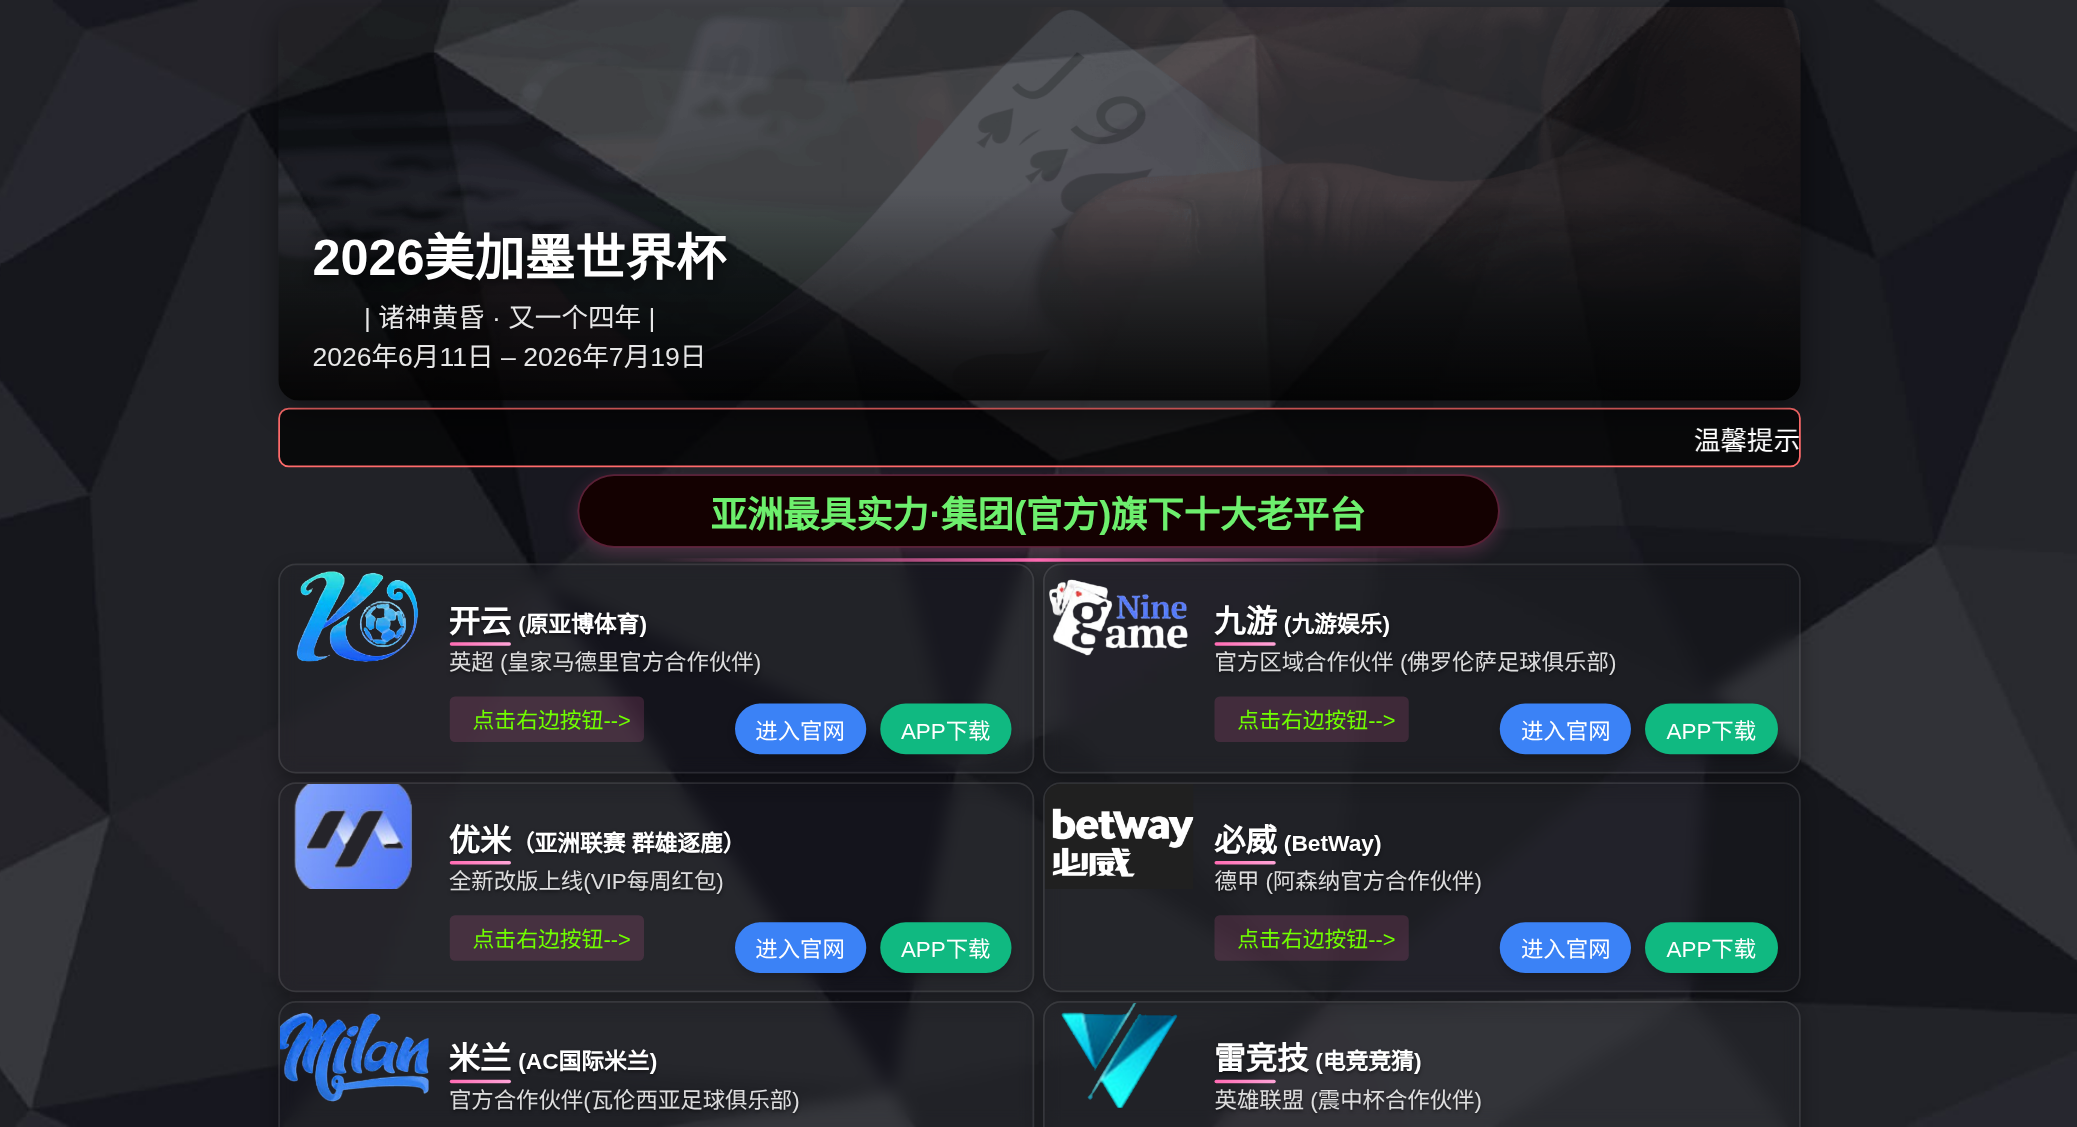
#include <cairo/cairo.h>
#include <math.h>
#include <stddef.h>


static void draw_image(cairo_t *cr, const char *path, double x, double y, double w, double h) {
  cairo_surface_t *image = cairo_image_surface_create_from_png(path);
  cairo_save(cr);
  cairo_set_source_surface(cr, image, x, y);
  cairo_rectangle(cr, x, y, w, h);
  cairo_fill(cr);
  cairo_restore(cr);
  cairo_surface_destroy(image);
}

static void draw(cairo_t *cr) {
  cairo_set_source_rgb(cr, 1, 1, 1);
  cairo_paint(cr);
  draw_image(cr, "images/1.png", 0, 0, 2077, 1127);
}

int main(void) {
  cairo_surface_t *surface = cairo_image_surface_create(CAIRO_FORMAT_RGB24, 2077, 1127);
  cairo_t *cr = cairo_create(surface);
  cairo_font_options_t *options = cairo_font_options_create();
  cairo_font_options_set_hint_metrics(options, CAIRO_HINT_METRICS_OFF);
  cairo_font_options_set_hint_style(options, CAIRO_HINT_STYLE_NONE);
  cairo_set_font_options(cr, options);
  cairo_set_miter_limit(cr, 4);
  draw(cr);
  cairo_surface_write_to_png(surface, "out.png");
  cairo_font_options_destroy(options);
  cairo_destroy(cr);
  cairo_surface_destroy(surface);
  return 0;
}
